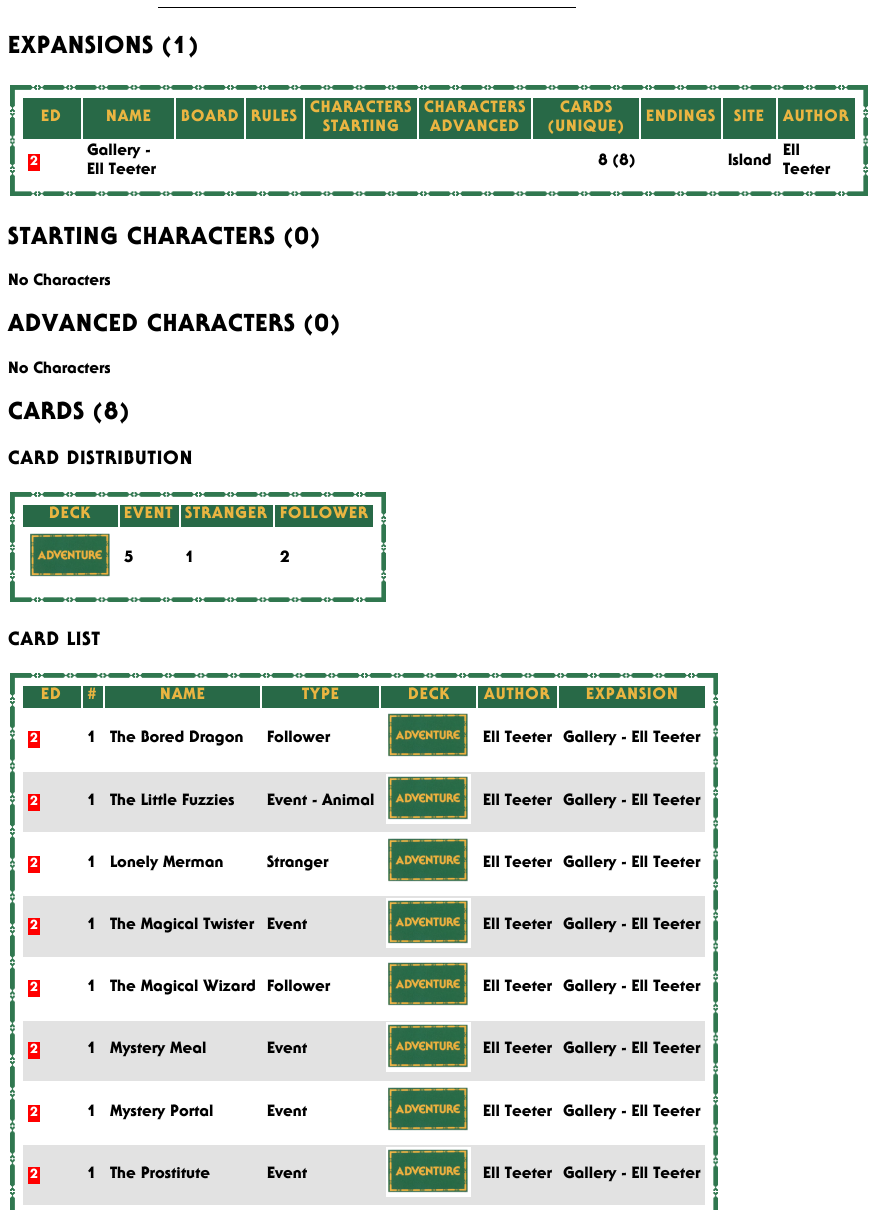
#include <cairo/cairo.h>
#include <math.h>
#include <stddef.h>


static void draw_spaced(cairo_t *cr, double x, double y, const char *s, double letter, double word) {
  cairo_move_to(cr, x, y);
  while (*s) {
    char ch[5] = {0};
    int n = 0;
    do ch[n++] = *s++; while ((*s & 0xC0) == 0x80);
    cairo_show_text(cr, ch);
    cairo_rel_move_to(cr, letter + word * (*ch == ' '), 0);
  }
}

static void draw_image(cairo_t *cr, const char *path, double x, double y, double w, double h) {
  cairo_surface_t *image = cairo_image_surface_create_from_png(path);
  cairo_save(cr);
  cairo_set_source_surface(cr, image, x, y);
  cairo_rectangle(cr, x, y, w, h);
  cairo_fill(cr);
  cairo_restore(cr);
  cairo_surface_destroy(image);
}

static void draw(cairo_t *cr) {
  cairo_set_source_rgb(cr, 1, 1, 1);
  cairo_paint(cr);
  cairo_set_source_rgb(cr, 0, 0, 0);
  cairo_rectangle(cr, 158, 7, 418, 1);
  cairo_fill(cr);
  draw_image(cr, "images/1.png", 10, 85, 858, 111);
  cairo_set_source_rgb(cr, 40 / 255.0, 105 / 255.0, 71 / 255.0);
  cairo_rectangle(cr, 23, 98, 58, 41);
  cairo_fill(cr);
  cairo_rectangle(cr, 83, 98, 91, 41);
  cairo_fill(cr);
  cairo_rectangle(cr, 176, 98, 68, 41);
  cairo_fill(cr);
  cairo_rectangle(cr, 246, 98, 57, 41);
  cairo_fill(cr);
  cairo_rectangle(cr, 305, 98, 112, 41);
  cairo_fill(cr);
  cairo_rectangle(cr, 419, 98, 112, 41);
  cairo_fill(cr);
  cairo_rectangle(cr, 533, 98, 106, 41);
  cairo_fill(cr);
  cairo_rectangle(cr, 641, 98, 80, 41);
  cairo_fill(cr);
  cairo_rectangle(cr, 723, 98, 53, 41);
  cairo_fill(cr);
  cairo_rectangle(cr, 778, 98, 77, 41);
  cairo_fill(cr);
  cairo_set_source_rgb(cr, 1, 0, 0);
  cairo_rectangle(cr, 28, 154, 12, 17);
  cairo_fill(cr);
  draw_image(cr, "images/2.png", 10, 492, 376, 110);
  cairo_set_source_rgb(cr, 40 / 255.0, 105 / 255.0, 71 / 255.0);
  cairo_rectangle(cr, 23, 505, 95, 22);
  cairo_fill(cr);
  cairo_rectangle(cr, 120, 505, 59, 22);
  cairo_fill(cr);
  cairo_rectangle(cr, 181, 505, 92, 22);
  cairo_fill(cr);
  cairo_rectangle(cr, 275, 505, 98, 22);
  cairo_fill(cr);
  draw_image(cr, "images/3.png", 30, 533, 80, 44);
  draw_image(cr, "images/4.png", 10, 673, 708, 537);
  cairo_rectangle(cr, 23, 686, 58, 22);
  cairo_fill(cr);
  cairo_rectangle(cr, 83, 686, 20, 22);
  cairo_fill(cr);
  cairo_rectangle(cr, 105, 686, 155, 22);
  cairo_fill(cr);
  cairo_rectangle(cr, 262, 686, 117, 22);
  cairo_fill(cr);
  cairo_rectangle(cr, 381, 686, 95, 22);
  cairo_fill(cr);
  cairo_rectangle(cr, 478, 686, 79, 22);
  cairo_fill(cr);
  cairo_rectangle(cr, 559, 686, 146, 22);
  cairo_fill(cr);
  cairo_set_source_rgb(cr, 1, 0, 0);
  cairo_rectangle(cr, 28, 731, 12, 17);
  cairo_fill(cr);
  draw_image(cr, "images/3.png", 388, 713, 80, 44);
  cairo_set_source_rgb(cr, 226 / 255.0, 226 / 255.0, 226 / 255.0);
  cairo_rectangle(cr, 23, 772, 682, 60);
  cairo_fill(cr);
  cairo_set_source_rgb(cr, 1, 0, 0);
  cairo_rectangle(cr, 28, 794, 12, 17);
  cairo_fill(cr);
  draw_image(cr, "images/5.png", 386, 774, 85, 50);
  cairo_rectangle(cr, 28, 856, 12, 17);
  cairo_fill(cr);
  draw_image(cr, "images/3.png", 388, 838, 80, 44);
  cairo_set_source_rgb(cr, 226 / 255.0, 226 / 255.0, 226 / 255.0);
  cairo_rectangle(cr, 23, 896, 682, 61);
  cairo_fill(cr);
  cairo_set_source_rgb(cr, 1, 0, 0);
  cairo_rectangle(cr, 28, 918, 12, 17);
  cairo_fill(cr);
  draw_image(cr, "images/5.png", 386, 898, 85, 50);
  cairo_rectangle(cr, 28, 980, 12, 17);
  cairo_fill(cr);
  draw_image(cr, "images/3.png", 388, 962, 80, 44);
  cairo_set_source_rgb(cr, 226 / 255.0, 226 / 255.0, 226 / 255.0);
  cairo_rectangle(cr, 23, 1021, 682, 60);
  cairo_fill(cr);
  cairo_set_source_rgb(cr, 1, 0, 0);
  cairo_rectangle(cr, 28, 1042, 12, 17);
  cairo_fill(cr);
  draw_image(cr, "images/5.png", 386, 1022, 85, 50);
  cairo_rectangle(cr, 28, 1105, 12, 17);
  cairo_fill(cr);
  draw_image(cr, "images/3.png", 388, 1087, 80, 44);
  cairo_set_source_rgb(cr, 226 / 255.0, 226 / 255.0, 226 / 255.0);
  cairo_rectangle(cr, 23, 1145, 682, 60);
  cairo_fill(cr);
  cairo_set_source_rgb(cr, 1, 0, 0);
  cairo_rectangle(cr, 28, 1167, 12, 17);
  cairo_fill(cr);
  draw_image(cr, "images/5.png", 386, 1147, 85, 50);
  cairo_select_font_face(cr, "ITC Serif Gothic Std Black", CAIRO_FONT_SLANT_NORMAL, CAIRO_FONT_WEIGHT_NORMAL);
  cairo_set_font_size(cr, 24);
  cairo_set_source_rgb(cr, 0, 0, 0);
  draw_spaced(cr, 8, 53, "EXPANSIONS (1)", 1, 0);
  cairo_set_font_size(cr, 16);
  cairo_set_source_rgb(cr, 234 / 255.0, 181 / 255.0, 65 / 255.0);
  draw_spaced(cr, 41, 121, "ED", 1, 0);
  draw_spaced(cr, 106, 121, "NAME", 1, 0);
  draw_spaced(cr, 181, 121, "BOARD", 1, 0);
  draw_spaced(cr, 251, 121, "RULES", 1, 0);
  draw_spaced(cr, 310, 112, "CHARACTERS", 1, 0);
  draw_spaced(cr, 323, 131, "STARTING", 1, 0);
  draw_spaced(cr, 424, 112, "CHARACTERS", 1, 0);
  draw_spaced(cr, 430, 131, "ADVANCED", 1, 0);
  draw_spaced(cr, 560, 112, "CARDS", 1, 0);
  draw_spaced(cr, 548, 131, "(UNIQUE)", 1, 0);
  draw_spaced(cr, 646, 121, "ENDINGS", 1, 0);
  draw_spaced(cr, 734, 121, "SITE", 1, 0);
  draw_spaced(cr, 783, 121, "AUTHOR", 1, 0);
  cairo_set_font_size(cr, 13);
  cairo_set_source_rgb(cr, 1, 1, 1);
  cairo_move_to(cr, 30, 165);
  cairo_show_text(cr, "2");
  cairo_set_font_size(cr, 16);
  cairo_set_source_rgb(cr, 0, 0, 0);
  cairo_move_to(cr, 87, 155);
  cairo_show_text(cr, "Gallery -");
  cairo_move_to(cr, 87, 174);
  cairo_show_text(cr, "Ell Teeter");
  cairo_move_to(cr, 598, 165);
  cairo_show_text(cr, "8 (8)");
  cairo_move_to(cr, 728, 165);
  cairo_show_text(cr, "Island");
  cairo_move_to(cr, 783, 155);
  cairo_show_text(cr, "Ell");
  cairo_move_to(cr, 783, 174);
  cairo_show_text(cr, "Teeter");
  cairo_set_font_size(cr, 24);
  draw_spaced(cr, 8, 244, "STARTING CHARACTERS (0)", 1, 0);
  cairo_set_font_size(cr, 16);
  cairo_move_to(cr, 8, 285);
  cairo_show_text(cr, "No Characters");
  cairo_set_font_size(cr, 24);
  draw_spaced(cr, 8, 331, "ADVANCED CHARACTERS (0)", 1, 0);
  cairo_set_font_size(cr, 16);
  cairo_move_to(cr, 8, 373);
  cairo_show_text(cr, "No Characters");
  cairo_set_font_size(cr, 24);
  draw_spaced(cr, 8, 419, "CARDS (8)", 1, 0);
  cairo_set_font_size(cr, 18.75);
  draw_spaced(cr, 8, 464, "CARD DISTRIBUTION", 1, 0);
  cairo_set_font_size(cr, 16);
  cairo_set_source_rgb(cr, 234 / 255.0, 181 / 255.0, 65 / 255.0);
  draw_spaced(cr, 49, 518, "DECK", 1, 0);
  draw_spaced(cr, 124, 518, "EVENT", 1, 0);
  draw_spaced(cr, 185, 518, "STRANGER", 1, 0);
  draw_spaced(cr, 280, 518, "FOLLOWER", 1, 0);
  cairo_set_source_rgb(cr, 0, 0, 0);
  cairo_move_to(cr, 124, 562);
  cairo_show_text(cr, "5");
  cairo_move_to(cr, 185, 562);
  cairo_show_text(cr, "1");
  cairo_move_to(cr, 280, 562);
  cairo_show_text(cr, "2");
  cairo_set_font_size(cr, 18.75);
  draw_spaced(cr, 8, 645, "CARD LIST", 1, 0);
  cairo_set_font_size(cr, 16);
  cairo_set_source_rgb(cr, 234 / 255.0, 181 / 255.0, 65 / 255.0);
  draw_spaced(cr, 41, 699, "ED", 1, 0);
  draw_spaced(cr, 87, 699, "#", 1, 0);
  draw_spaced(cr, 160, 699, "NAME", 1, 0);
  draw_spaced(cr, 302, 699, "TYPE", 1, 0);
  draw_spaced(cr, 408, 699, "DECK", 1, 0);
  draw_spaced(cr, 484, 699, "AUTHOR", 1, 0);
  draw_spaced(cr, 586, 699, "EXPANSION", 1, 0);
  cairo_set_font_size(cr, 13);
  cairo_set_source_rgb(cr, 1, 1, 1);
  cairo_move_to(cr, 30, 742);
  cairo_show_text(cr, "2");
  cairo_set_font_size(cr, 16);
  cairo_set_source_rgb(cr, 0, 0, 0);
  cairo_move_to(cr, 87, 742);
  cairo_show_text(cr, "1");
  cairo_move_to(cr, 110, 742);
  cairo_show_text(cr, "The Bored Dragon");
  cairo_move_to(cr, 267, 742);
  cairo_show_text(cr, "Follower");
  cairo_move_to(cr, 483, 742);
  cairo_show_text(cr, "Ell Teeter");
  cairo_move_to(cr, 563, 742);
  cairo_show_text(cr, "Gallery - Ell Teeter");
  cairo_set_font_size(cr, 13);
  cairo_set_source_rgb(cr, 1, 1, 1);
  cairo_move_to(cr, 30, 805);
  cairo_show_text(cr, "2");
  cairo_set_font_size(cr, 16);
  cairo_set_source_rgb(cr, 0, 0, 0);
  cairo_move_to(cr, 87, 805);
  cairo_show_text(cr, "1");
  cairo_move_to(cr, 110, 805);
  cairo_show_text(cr, "The Little Fuzzies");
  cairo_move_to(cr, 267, 805);
  cairo_show_text(cr, "Event - Animal");
  cairo_move_to(cr, 483, 805);
  cairo_show_text(cr, "Ell Teeter");
  cairo_move_to(cr, 563, 805);
  cairo_show_text(cr, "Gallery - Ell Teeter");
  cairo_set_font_size(cr, 13);
  cairo_set_source_rgb(cr, 1, 1, 1);
  cairo_move_to(cr, 30, 867);
  cairo_show_text(cr, "2");
  cairo_set_font_size(cr, 16);
  cairo_set_source_rgb(cr, 0, 0, 0);
  cairo_move_to(cr, 87, 867);
  cairo_show_text(cr, "1");
  cairo_move_to(cr, 110, 867);
  cairo_show_text(cr, "Lonely Merman");
  cairo_move_to(cr, 267, 867);
  cairo_show_text(cr, "Stranger");
  cairo_move_to(cr, 483, 867);
  cairo_show_text(cr, "Ell Teeter");
  cairo_move_to(cr, 563, 867);
  cairo_show_text(cr, "Gallery - Ell Teeter");
  cairo_set_font_size(cr, 13);
  cairo_set_source_rgb(cr, 1, 1, 1);
  cairo_move_to(cr, 30, 929);
  cairo_show_text(cr, "2");
  cairo_set_font_size(cr, 16);
  cairo_set_source_rgb(cr, 0, 0, 0);
  cairo_move_to(cr, 87, 929);
  cairo_show_text(cr, "1");
  cairo_move_to(cr, 110, 929);
  cairo_show_text(cr, "The Magical Twister");
  cairo_move_to(cr, 267, 929);
  cairo_show_text(cr, "Event");
  cairo_move_to(cr, 483, 929);
  cairo_show_text(cr, "Ell Teeter");
  cairo_move_to(cr, 563, 929);
  cairo_show_text(cr, "Gallery - Ell Teeter");
  cairo_set_font_size(cr, 13);
  cairo_set_source_rgb(cr, 1, 1, 1);
  cairo_move_to(cr, 30, 991);
  cairo_show_text(cr, "2");
  cairo_set_font_size(cr, 16);
  cairo_set_source_rgb(cr, 0, 0, 0);
  cairo_move_to(cr, 87, 991);
  cairo_show_text(cr, "1");
  cairo_move_to(cr, 110, 991);
  cairo_show_text(cr, "The Magical Wizard");
  cairo_move_to(cr, 267, 991);
  cairo_show_text(cr, "Follower");
  cairo_move_to(cr, 483, 991);
  cairo_show_text(cr, "Ell Teeter");
  cairo_move_to(cr, 563, 991);
  cairo_show_text(cr, "Gallery - Ell Teeter");
  cairo_set_font_size(cr, 13);
  cairo_set_source_rgb(cr, 1, 1, 1);
  cairo_move_to(cr, 30, 1053);
  cairo_show_text(cr, "2");
  cairo_set_font_size(cr, 16);
  cairo_set_source_rgb(cr, 0, 0, 0);
  cairo_move_to(cr, 87, 1053);
  cairo_show_text(cr, "1");
  cairo_move_to(cr, 110, 1053);
  cairo_show_text(cr, "Mystery Meal");
  cairo_move_to(cr, 267, 1053);
  cairo_show_text(cr, "Event");
  cairo_move_to(cr, 483, 1053);
  cairo_show_text(cr, "Ell Teeter");
  cairo_move_to(cr, 563, 1053);
  cairo_show_text(cr, "Gallery - Ell Teeter");
  cairo_set_font_size(cr, 13);
  cairo_set_source_rgb(cr, 1, 1, 1);
  cairo_move_to(cr, 30, 1116);
  cairo_show_text(cr, "2");
  cairo_set_font_size(cr, 16);
  cairo_set_source_rgb(cr, 0, 0, 0);
  cairo_move_to(cr, 87, 1116);
  cairo_show_text(cr, "1");
  cairo_move_to(cr, 110, 1116);
  cairo_show_text(cr, "Mystery Portal");
  cairo_move_to(cr, 267, 1116);
  cairo_show_text(cr, "Event");
  cairo_move_to(cr, 483, 1116);
  cairo_show_text(cr, "Ell Teeter");
  cairo_move_to(cr, 563, 1116);
  cairo_show_text(cr, "Gallery - Ell Teeter");
  cairo_set_font_size(cr, 13);
  cairo_set_source_rgb(cr, 1, 1, 1);
  cairo_move_to(cr, 30, 1178);
  cairo_show_text(cr, "2");
  cairo_set_font_size(cr, 16);
  cairo_set_source_rgb(cr, 0, 0, 0);
  cairo_move_to(cr, 87, 1178);
  cairo_show_text(cr, "1");
  cairo_move_to(cr, 110, 1178);
  cairo_show_text(cr, "The Prostitute");
  cairo_move_to(cr, 267, 1178);
  cairo_show_text(cr, "Event");
  cairo_move_to(cr, 483, 1178);
  cairo_show_text(cr, "Ell Teeter");
  cairo_move_to(cr, 563, 1178);
  cairo_show_text(cr, "Gallery - Ell Teeter");
}

int main(void) {
  cairo_surface_t *surface = cairo_image_surface_create(CAIRO_FORMAT_RGB24, 878, 1210);
  cairo_t *cr = cairo_create(surface);
  cairo_font_options_t *options = cairo_font_options_create();
  cairo_font_options_set_hint_metrics(options, CAIRO_HINT_METRICS_OFF);
  cairo_font_options_set_hint_style(options, CAIRO_HINT_STYLE_NONE);
  cairo_set_font_options(cr, options);
  cairo_set_miter_limit(cr, 4);
  draw(cr);
  cairo_surface_write_to_png(surface, "out.png");
  cairo_font_options_destroy(options);
  cairo_destroy(cr);
  cairo_surface_destroy(surface);
  return 0;
}
